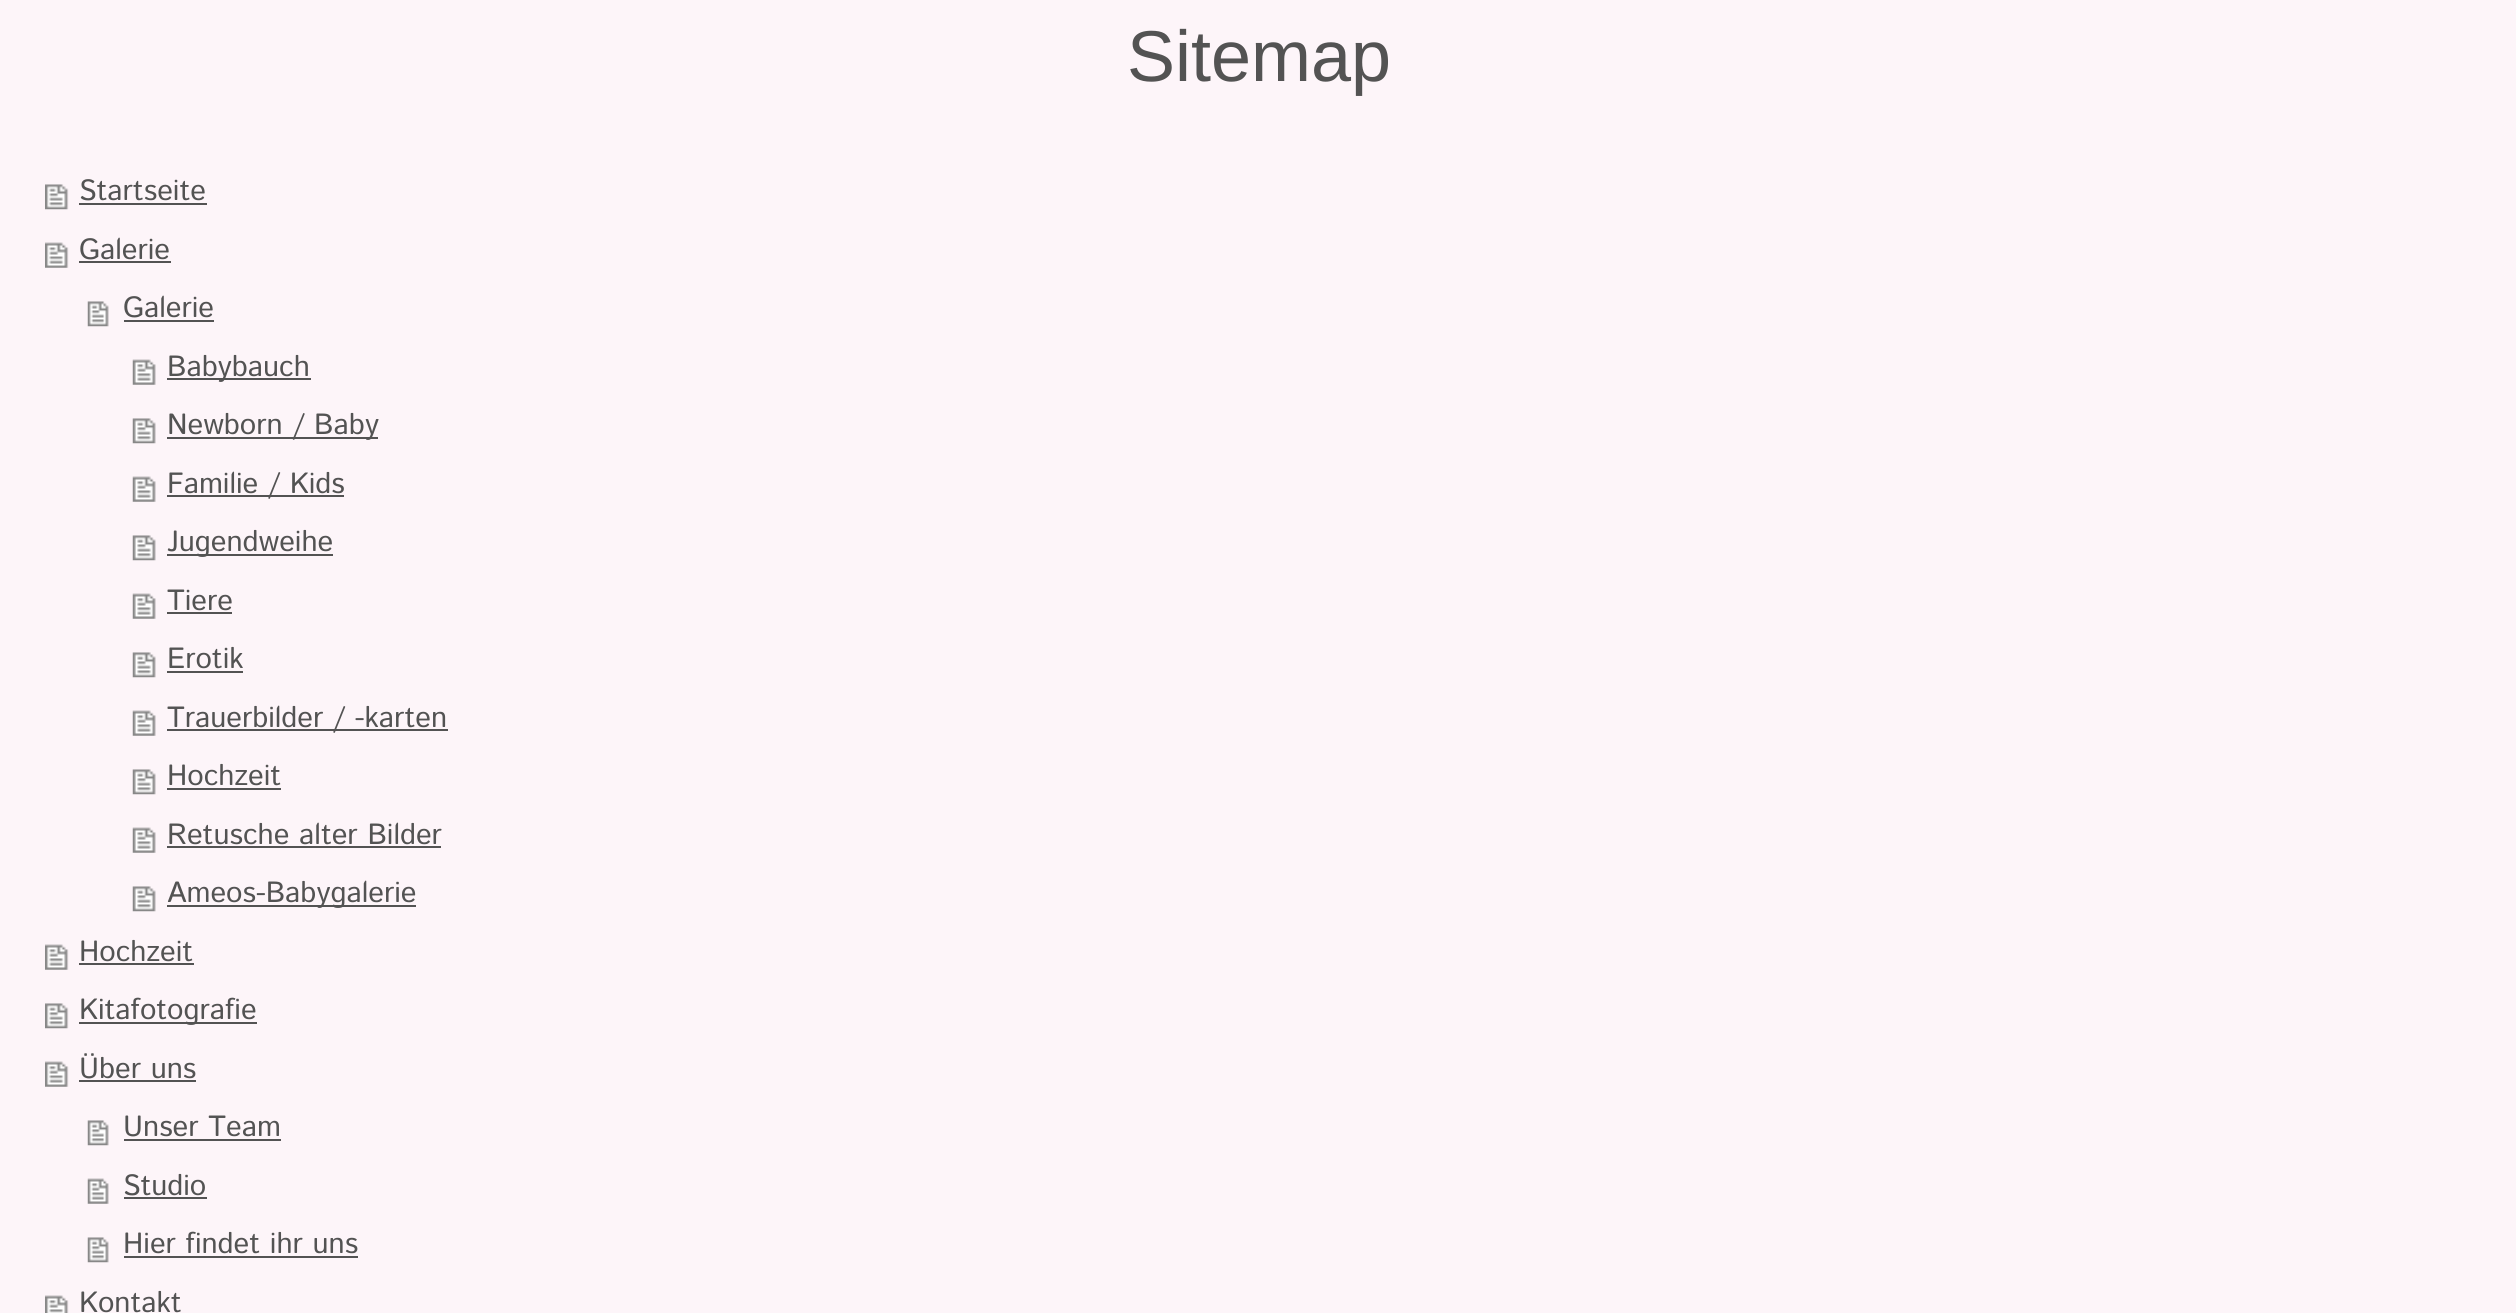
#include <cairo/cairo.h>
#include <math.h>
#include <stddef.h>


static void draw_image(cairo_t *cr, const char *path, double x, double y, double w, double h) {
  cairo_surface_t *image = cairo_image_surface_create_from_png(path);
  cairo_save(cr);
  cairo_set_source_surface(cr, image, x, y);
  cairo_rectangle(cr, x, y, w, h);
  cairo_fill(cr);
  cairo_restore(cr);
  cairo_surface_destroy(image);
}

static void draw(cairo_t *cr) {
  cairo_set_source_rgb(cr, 253 / 255.0, 245 / 255.0, 249 / 255.0);
  cairo_paint(cr);
  draw_image(cr, "images/1.png", 45, 184, 24, 26);
  cairo_set_source_rgb(cr, 83 / 255.0, 83 / 255.0, 83 / 255.0);
  cairo_rectangle(cr, 79, 203, 128, 2);
  cairo_fill(cr);
  draw_image(cr, "images/2.png", 45, 242, 24, 26);
  cairo_rectangle(cr, 79, 261, 92, 2);
  cairo_fill(cr);
  draw_image(cr, "images/3.png", 87, 301, 22, 26);
  cairo_rectangle(cr, 124, 320, 90, 2);
  cairo_fill(cr);
  draw_image(cr, "images/4.png", 132, 359, 24, 26);
  cairo_rectangle(cr, 167, 378, 144, 2);
  cairo_fill(cr);
  draw_image(cr, "images/5.png", 132, 418, 24, 26);
  cairo_rectangle(cr, 167, 437, 211, 2);
  cairo_fill(cr);
  draw_image(cr, "images/4.png", 132, 476, 24, 26);
  cairo_rectangle(cr, 167, 495, 177, 2);
  cairo_fill(cr);
  draw_image(cr, "images/5.png", 132, 535, 24, 26);
  cairo_rectangle(cr, 167, 554, 166, 2);
  cairo_fill(cr);
  draw_image(cr, "images/4.png", 132, 593, 24, 26);
  cairo_rectangle(cr, 167, 612, 65, 2);
  cairo_fill(cr);
  draw_image(cr, "images/5.png", 132, 652, 24, 26);
  cairo_rectangle(cr, 167, 671, 76, 2);
  cairo_fill(cr);
  draw_image(cr, "images/4.png", 132, 710, 24, 26);
  cairo_rectangle(cr, 167, 729, 281, 2);
  cairo_fill(cr);
  draw_image(cr, "images/5.png", 132, 769, 24, 26);
  cairo_rectangle(cr, 167, 788, 114, 2);
  cairo_fill(cr);
  draw_image(cr, "images/4.png", 132, 827, 24, 26);
  cairo_rectangle(cr, 167, 846, 274, 2);
  cairo_fill(cr);
  draw_image(cr, "images/5.png", 132, 886, 24, 26);
  cairo_rectangle(cr, 167, 905, 249, 2);
  cairo_fill(cr);
  draw_image(cr, "images/6.png", 45, 944, 24, 26);
  cairo_rectangle(cr, 79, 963, 115, 2);
  cairo_fill(cr);
  draw_image(cr, "images/7.png", 45, 1003, 24, 26);
  cairo_rectangle(cr, 79, 1022, 178, 2);
  cairo_fill(cr);
  draw_image(cr, "images/8.png", 45, 1061, 24, 26);
  cairo_rectangle(cr, 79, 1080, 117, 2);
  cairo_fill(cr);
  draw_image(cr, "images/3.png", 87, 1120, 22, 26);
  cairo_rectangle(cr, 124, 1139, 157, 2);
  cairo_fill(cr);
  draw_image(cr, "images/9.png", 87, 1178, 22, 26);
  cairo_rectangle(cr, 124, 1197, 83, 2);
  cairo_fill(cr);
  draw_image(cr, "images/3.png", 87, 1237, 22, 26);
  cairo_rectangle(cr, 124, 1256, 234, 2);
  cairo_fill(cr);
  draw_image(cr, "images/10.png", 45, 1295, 24, 18);
  cairo_select_font_face(cr, "Liberation Sans", CAIRO_FONT_SLANT_NORMAL, CAIRO_FONT_WEIGHT_NORMAL);
  cairo_set_font_size(cr, 72);
  cairo_move_to(cr, 1127, 81);
  cairo_show_text(cr, "Sitemap");
  cairo_select_font_face(cr, "Istok Web", CAIRO_FONT_SLANT_NORMAL, CAIRO_FONT_WEIGHT_NORMAL);
  cairo_set_font_size(cr, 29.25);
  cairo_move_to(cr, 79, 200);
  cairo_show_text(cr, "Startseite");
  cairo_move_to(cr, 79, 259);
  cairo_show_text(cr, "Galerie");
  cairo_move_to(cr, 123, 317);
  cairo_show_text(cr, "Galerie");
  cairo_move_to(cr, 167, 376);
  cairo_show_text(cr, "Babybauch");
  cairo_move_to(cr, 167, 434);
  cairo_show_text(cr, "Newborn / Baby");
  cairo_move_to(cr, 167, 493);
  cairo_show_text(cr, "Familie / Kids");
  cairo_move_to(cr, 167, 551);
  cairo_show_text(cr, "Jugendweihe");
  cairo_move_to(cr, 167, 610);
  cairo_show_text(cr, "Tiere");
  cairo_move_to(cr, 167, 668);
  cairo_show_text(cr, "Erotik");
  cairo_move_to(cr, 167, 727);
  cairo_show_text(cr, "Trauerbilder / -karten");
  cairo_move_to(cr, 167, 785);
  cairo_show_text(cr, "Hochzeit");
  cairo_move_to(cr, 167, 844);
  cairo_show_text(cr, "Retusche alter Bilder");
  cairo_move_to(cr, 167, 902);
  cairo_show_text(cr, "Ameos-Babygalerie");
  cairo_move_to(cr, 79, 961);
  cairo_show_text(cr, "Hochzeit");
  cairo_move_to(cr, 79, 1019);
  cairo_show_text(cr, "Kitafotografie");
  cairo_move_to(cr, 79, 1078);
  cairo_show_text(cr, "Über uns");
  cairo_move_to(cr, 123, 1136);
  cairo_show_text(cr, "Unser Team");
  cairo_move_to(cr, 123, 1195);
  cairo_show_text(cr, "Studio");
  cairo_move_to(cr, 123, 1253);
  cairo_show_text(cr, "Hier findet ihr uns");
  cairo_move_to(cr, 79, 1312);
  cairo_show_text(cr, "Kontakt");
}

int main(void) {
  cairo_surface_t *surface = cairo_image_surface_create(CAIRO_FORMAT_RGB24, 2516, 1313);
  cairo_t *cr = cairo_create(surface);
  cairo_font_options_t *options = cairo_font_options_create();
  cairo_font_options_set_hint_metrics(options, CAIRO_HINT_METRICS_OFF);
  cairo_font_options_set_hint_style(options, CAIRO_HINT_STYLE_NONE);
  cairo_set_font_options(cr, options);
  cairo_set_miter_limit(cr, 4);
  draw(cr);
  cairo_surface_write_to_png(surface, "out.png");
  cairo_font_options_destroy(options);
  cairo_destroy(cr);
  cairo_surface_destroy(surface);
  return 0;
}
